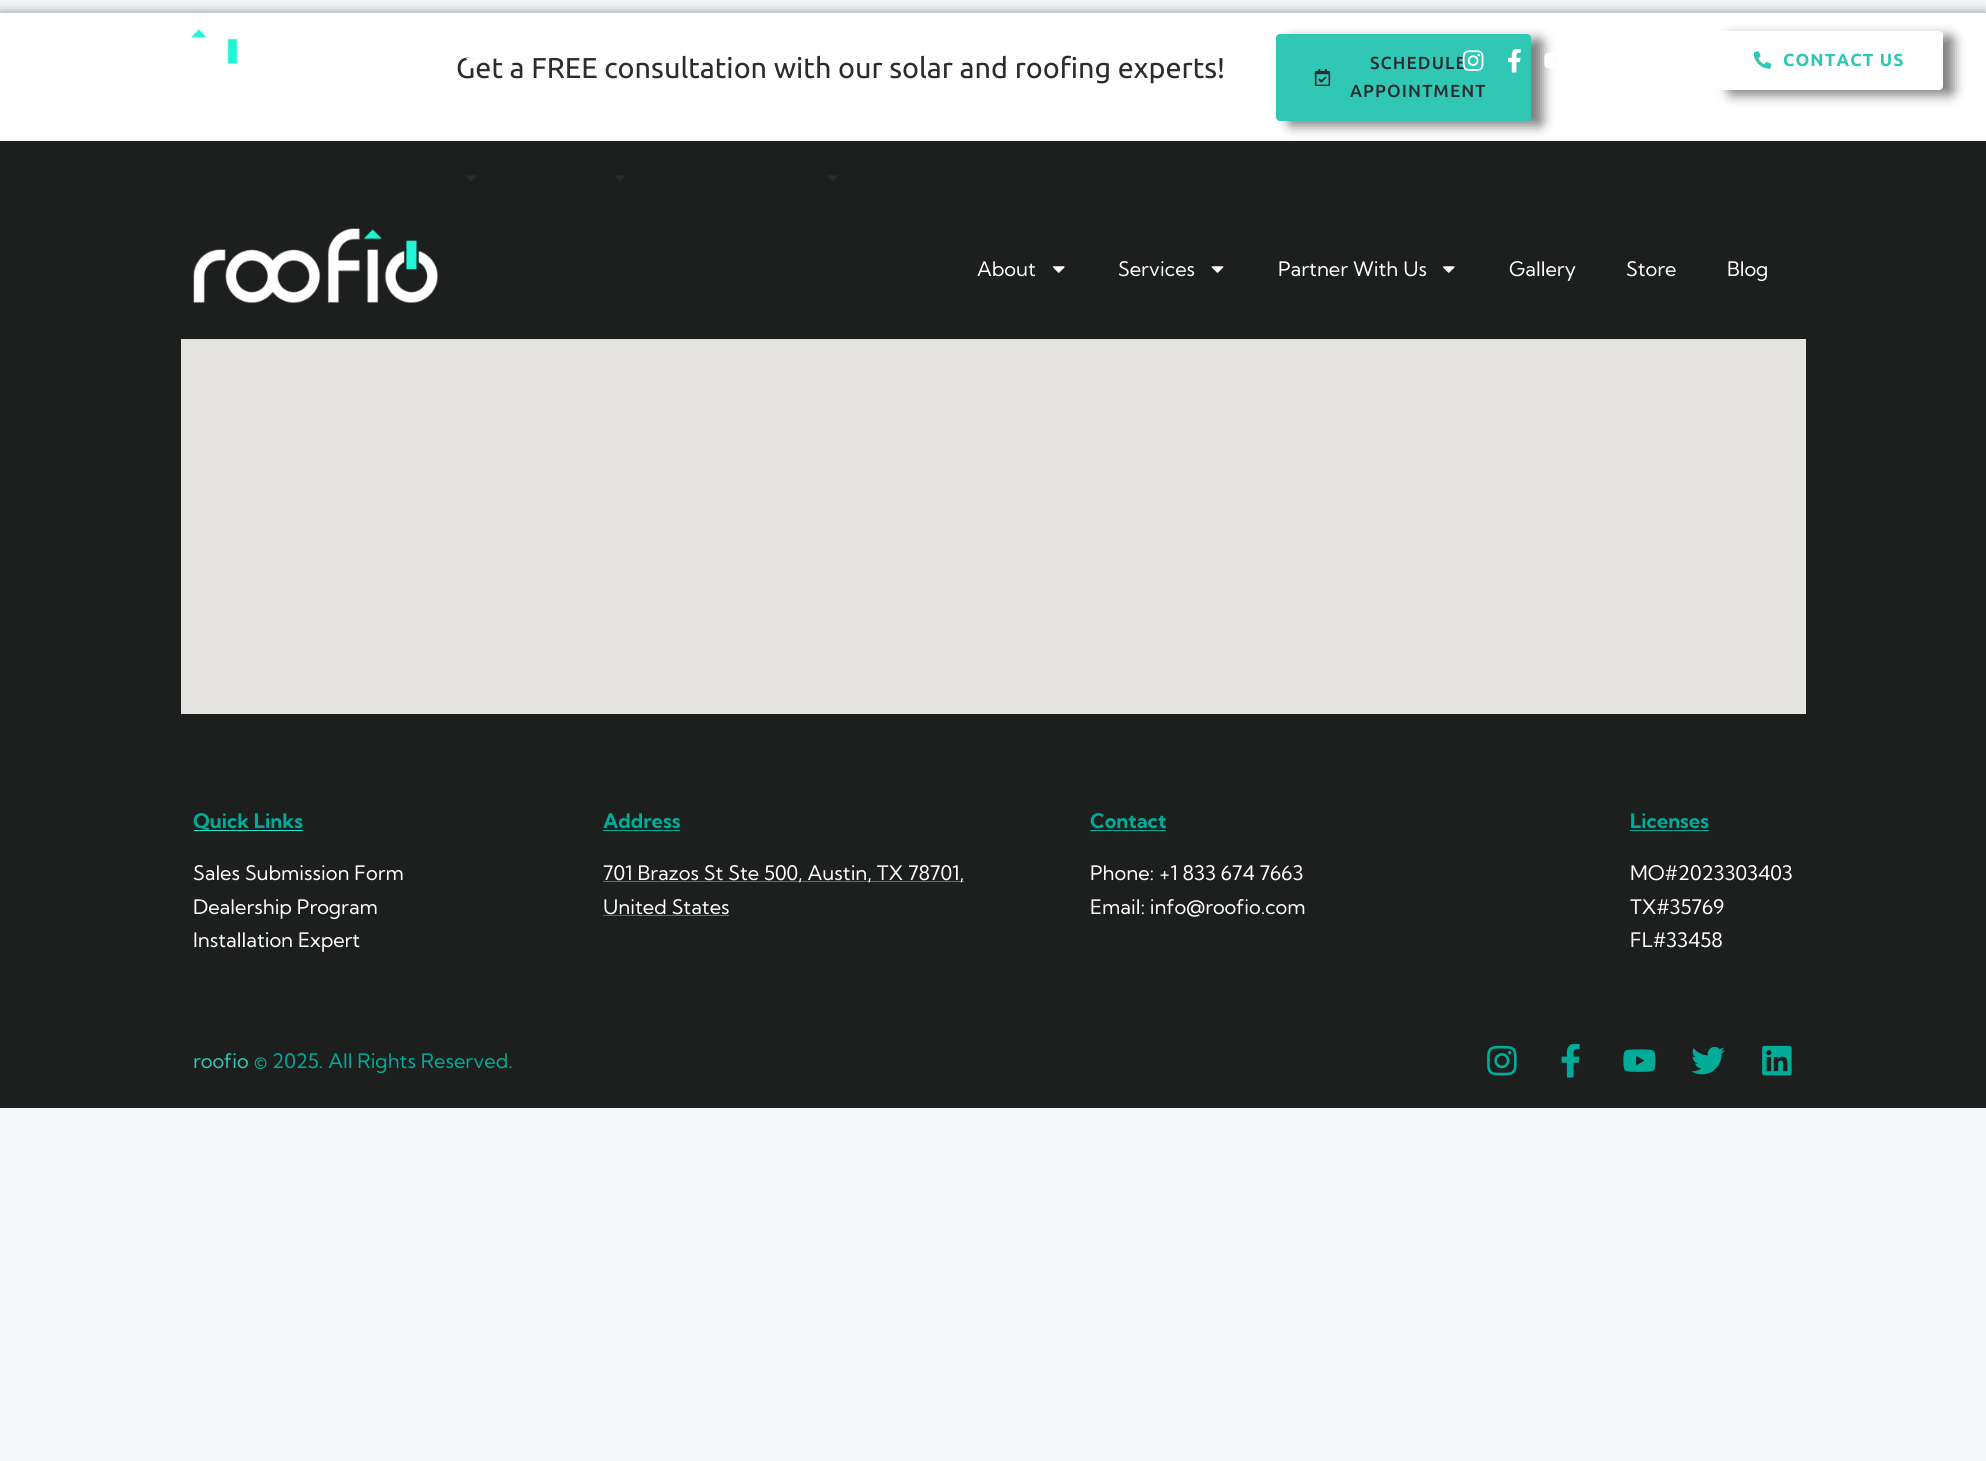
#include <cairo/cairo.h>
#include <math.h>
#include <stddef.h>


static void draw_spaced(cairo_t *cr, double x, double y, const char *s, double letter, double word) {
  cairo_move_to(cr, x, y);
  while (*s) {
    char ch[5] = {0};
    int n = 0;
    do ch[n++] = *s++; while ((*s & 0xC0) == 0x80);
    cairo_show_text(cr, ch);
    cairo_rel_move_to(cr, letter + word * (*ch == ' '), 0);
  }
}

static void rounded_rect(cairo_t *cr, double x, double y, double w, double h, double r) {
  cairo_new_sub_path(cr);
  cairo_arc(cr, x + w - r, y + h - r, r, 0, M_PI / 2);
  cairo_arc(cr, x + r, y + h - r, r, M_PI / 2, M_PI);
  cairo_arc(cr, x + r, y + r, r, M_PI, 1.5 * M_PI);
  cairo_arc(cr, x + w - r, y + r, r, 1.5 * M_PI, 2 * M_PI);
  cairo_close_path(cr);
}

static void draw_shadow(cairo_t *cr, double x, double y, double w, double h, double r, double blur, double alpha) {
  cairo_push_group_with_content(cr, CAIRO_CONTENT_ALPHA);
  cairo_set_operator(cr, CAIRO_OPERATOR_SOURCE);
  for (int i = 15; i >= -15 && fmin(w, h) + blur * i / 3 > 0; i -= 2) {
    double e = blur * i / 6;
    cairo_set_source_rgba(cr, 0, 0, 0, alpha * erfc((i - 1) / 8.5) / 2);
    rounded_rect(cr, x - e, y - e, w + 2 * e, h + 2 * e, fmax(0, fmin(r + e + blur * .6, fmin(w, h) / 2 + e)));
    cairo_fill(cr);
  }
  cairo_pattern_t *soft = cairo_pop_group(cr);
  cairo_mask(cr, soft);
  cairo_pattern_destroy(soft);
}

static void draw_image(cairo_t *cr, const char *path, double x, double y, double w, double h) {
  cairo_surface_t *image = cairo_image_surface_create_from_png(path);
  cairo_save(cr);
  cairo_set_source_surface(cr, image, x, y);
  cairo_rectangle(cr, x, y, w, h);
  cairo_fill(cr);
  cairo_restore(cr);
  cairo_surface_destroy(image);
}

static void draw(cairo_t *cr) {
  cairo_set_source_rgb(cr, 243 / 255.0, 247 / 255.0, 250 / 255.0);
  cairo_paint(cr);
  cairo_set_source_rgb(cr, 0, 0, 0);
  draw_shadow(cr, 0, 14, 1986, 130, 0, 6, 0.5);
  cairo_set_source_rgb(cr, 1, 1, 1);
  cairo_rectangle(cr, 0, 13, 1986, 128);
  cairo_fill(cr);
  cairo_set_source_rgb(cr, 0, 0, 0);
  draw_shadow(cr, 1288, 39, 255, 87, 4, 6, 0.5);
  cairo_set_source_rgb(cr, 48 / 255.0, 199 / 255.0, 181 / 255.0);
  rounded_rect(cr, 1276, 34, 255, 87, 4);
  cairo_fill(cr);
  draw_image(cr, "images/1.png", 1314, 69, 17, 17);
  cairo_set_source_rgb(cr, 29 / 255.0, 31 / 255.0, 30 / 255.0);
  cairo_rectangle(cr, 0, 141, 1986, 967);
  cairo_fill(cr);
  draw_image(cr, "images/2.png", 193, 228, 245, 75);
  draw_image(cr, "images/3.png", 1053, 266, 12, 7);
  draw_image(cr, "images/4.png", 1211, 266, 13, 7);
  draw_image(cr, "images/3.png", 1443, 266, 12, 7);
  cairo_set_source_rgb(cr, 229 / 255.0, 227 / 255.0, 223 / 255.0);
  cairo_rectangle(cr, 181, 339, 1625, 375);
  cairo_fill(cr);
  cairo_set_source_rgb(cr, 32 / 255.0, 230 / 255.0, 206 / 255.0);
  cairo_rectangle(cr, 194, 830, 109, 1);
  cairo_fill(cr);
  cairo_set_source_rgb(cr, 0, 172 / 255.0, 151 / 255.0);
  cairo_rectangle(cr, 603, 830, 77, 1);
  cairo_fill(cr);
  cairo_set_source_rgb(cr, 111 / 255.0, 104 / 255.0, 104 / 255.0);
  cairo_rectangle(cr, 603, 881, 361, 1);
  cairo_fill(cr);
  cairo_rectangle(cr, 603, 915, 126, 1);
  cairo_fill(cr);
  cairo_set_source_rgb(cr, 0, 172 / 255.0, 151 / 255.0);
  cairo_rectangle(cr, 1090, 830, 76, 1);
  cairo_fill(cr);
  cairo_rectangle(cr, 1630, 830, 79, 1);
  cairo_fill(cr);
  draw_image(cr, "images/5.png", 1487, 1045, 30, 31);
  draw_image(cr, "images/6.png", 1561, 1044, 19, 34);
  draw_image(cr, "images/7.png", 1623, 1049, 33, 23);
  draw_image(cr, "images/8.png", 1691, 1046, 34, 29);
  draw_image(cr, "images/9.png", 1762, 1045, 30, 31);
  draw_image(cr, "images/10.png", 191, 29, 48, 35);
  draw_image(cr, "images/13.png", 1508, 49, 13, 24);
  draw_image(cr, "images/14.png", 1544, 53, 10, 16);
  cairo_set_source_rgb(cr, 0, 0, 0);
  draw_shadow(cr, 1728, 36, 226, 59, 4, 6, 0.5);
  cairo_set_source_rgb(cr, 1, 1, 1);
  rounded_rect(cr, 1716, 31, 227, 59, 4);
  cairo_fill(cr);
  draw_image(cr, "images/15.png", 1754, 51, 17, 18);
  draw_image(cr, "images/16.png", 466, 175, 10, 6);
  draw_image(cr, "images/17.png", 615, 175, 10, 6);
  draw_image(cr, "images/18.png", 827, 175, 11, 6);
  cairo_select_font_face(cr, "Ubuntu", CAIRO_FONT_SLANT_NORMAL, CAIRO_FONT_WEIGHT_NORMAL);
  cairo_set_font_size(cr, 28.75);
  cairo_set_source_rgb(cr, 42 / 255.0, 44 / 255.0, 47 / 255.0);
  cairo_move_to(cr, 456, 78);
  cairo_show_text(cr, "Get a FREE consultation with our solar and roofing experts!");
  cairo_select_font_face(cr, "Ubuntu Medium", CAIRO_FONT_SLANT_NORMAL, CAIRO_FONT_WEIGHT_NORMAL);
  cairo_set_font_size(cr, 17.5);
  draw_spaced(cr, 1370, 69, "SCHEDULE", 1.1, 0);
  draw_spaced(cr, 1350, 97, "APPOINTMENT", 1.1, 0);
  cairo_select_font_face(cr, "Kumbh Sans", CAIRO_FONT_SLANT_NORMAL, CAIRO_FONT_WEIGHT_NORMAL);
  cairo_set_font_size(cr, 20);
  cairo_set_source_rgb(cr, 1, 1, 1);
  cairo_move_to(cr, 977, 276);
  cairo_show_text(cr, "About");
  cairo_move_to(cr, 1118, 276);
  cairo_show_text(cr, "Services");
  cairo_move_to(cr, 1278, 276);
  cairo_show_text(cr, "Partner With Us");
  cairo_move_to(cr, 1509, 276);
  cairo_show_text(cr, "Gallery");
  cairo_move_to(cr, 1626, 276);
  cairo_show_text(cr, "Store");
  cairo_move_to(cr, 1727, 276);
  cairo_show_text(cr, "Blog");
  cairo_select_font_face(cr, "Kumbh Sans", CAIRO_FONT_SLANT_NORMAL, CAIRO_FONT_WEIGHT_BOLD);
  cairo_set_source_rgb(cr, 0, 172 / 255.0, 151 / 255.0);
  cairo_move_to(cr, 193, 828);
  cairo_show_text(cr, "Quick Links");
  cairo_select_font_face(cr, "Kumbh Sans", CAIRO_FONT_SLANT_NORMAL, CAIRO_FONT_WEIGHT_NORMAL);
  cairo_set_source_rgb(cr, 1, 1, 1);
  cairo_move_to(cr, 193, 880);
  cairo_show_text(cr, "Sales Submission Form");
  cairo_move_to(cr, 193, 914);
  cairo_show_text(cr, "Dealership Program");
  cairo_move_to(cr, 193, 947);
  cairo_show_text(cr, "Installation Expert");
  cairo_select_font_face(cr, "Kumbh Sans", CAIRO_FONT_SLANT_NORMAL, CAIRO_FONT_WEIGHT_BOLD);
  cairo_set_source_rgb(cr, 0, 172 / 255.0, 151 / 255.0);
  cairo_move_to(cr, 603, 828);
  cairo_show_text(cr, "Address");
  cairo_select_font_face(cr, "Kumbh Sans", CAIRO_FONT_SLANT_NORMAL, CAIRO_FONT_WEIGHT_NORMAL);
  cairo_set_source_rgb(cr, 1, 1, 1);
  cairo_move_to(cr, 603, 880);
  cairo_show_text(cr, "701 Brazos St Ste 500, Austin, TX 78701,");
  cairo_move_to(cr, 603, 914);
  cairo_show_text(cr, "United States");
  cairo_select_font_face(cr, "Kumbh Sans", CAIRO_FONT_SLANT_NORMAL, CAIRO_FONT_WEIGHT_BOLD);
  cairo_set_source_rgb(cr, 0, 172 / 255.0, 151 / 255.0);
  cairo_move_to(cr, 1090, 828);
  cairo_show_text(cr, "Contact");
  cairo_select_font_face(cr, "Kumbh Sans", CAIRO_FONT_SLANT_NORMAL, CAIRO_FONT_WEIGHT_NORMAL);
  cairo_set_source_rgb(cr, 1, 1, 1);
  cairo_move_to(cr, 1090, 880);
  cairo_show_text(cr, "Phone: +1 833 674 7663");
  cairo_move_to(cr, 1090, 914);
  cairo_show_text(cr, "Email: info@roofio.com");
  cairo_select_font_face(cr, "Kumbh Sans", CAIRO_FONT_SLANT_NORMAL, CAIRO_FONT_WEIGHT_BOLD);
  cairo_set_source_rgb(cr, 0, 172 / 255.0, 151 / 255.0);
  cairo_move_to(cr, 1630, 828);
  cairo_show_text(cr, "Licenses");
  cairo_select_font_face(cr, "Kumbh Sans", CAIRO_FONT_SLANT_NORMAL, CAIRO_FONT_WEIGHT_NORMAL);
  cairo_set_source_rgb(cr, 1, 1, 1);
  cairo_move_to(cr, 1630, 880);
  cairo_show_text(cr, "MO#2023303403");
  cairo_move_to(cr, 1630, 914);
  cairo_show_text(cr, "TX#35769");
  cairo_move_to(cr, 1630, 947);
  cairo_show_text(cr, "FL#33458");
  cairo_set_source_rgb(cr, 48 / 255.0, 199 / 255.0, 181 / 255.0);
  cairo_move_to(cr, 193, 1068);
  cairo_show_text(cr, "roofio");
  cairo_set_source_rgb(cr, 0, 172 / 255.0, 151 / 255.0);
  cairo_move_to(cr, 254, 1068);
  cairo_show_text(cr, "© 2025. All Rights Reserved.");
  draw_image(cr, "images/11.png", 466, 57, 7, 5);
  draw_image(cr, "images/12.png", 1462, 50, 22, 21);
  cairo_select_font_face(cr, "Ubuntu", CAIRO_FONT_SLANT_NORMAL, CAIRO_FONT_WEIGHT_BOLD);
  cairo_set_font_size(cr, 17.5);
  cairo_set_source_rgb(cr, 48 / 255.0, 199 / 255.0, 181 / 255.0);
  draw_spaced(cr, 1783, 66, "CONTACT US", 1.1, 0);
}

int main(void) {
  cairo_surface_t *surface = cairo_image_surface_create(CAIRO_FORMAT_RGB24, 1986, 1461);
  cairo_t *cr = cairo_create(surface);
  cairo_font_options_t *options = cairo_font_options_create();
  cairo_font_options_set_hint_metrics(options, CAIRO_HINT_METRICS_OFF);
  cairo_font_options_set_hint_style(options, CAIRO_HINT_STYLE_NONE);
  cairo_set_font_options(cr, options);
  cairo_set_miter_limit(cr, 4);
  draw(cr);
  cairo_surface_write_to_png(surface, "out.png");
  cairo_font_options_destroy(options);
  cairo_destroy(cr);
  cairo_surface_destroy(surface);
  return 0;
}
